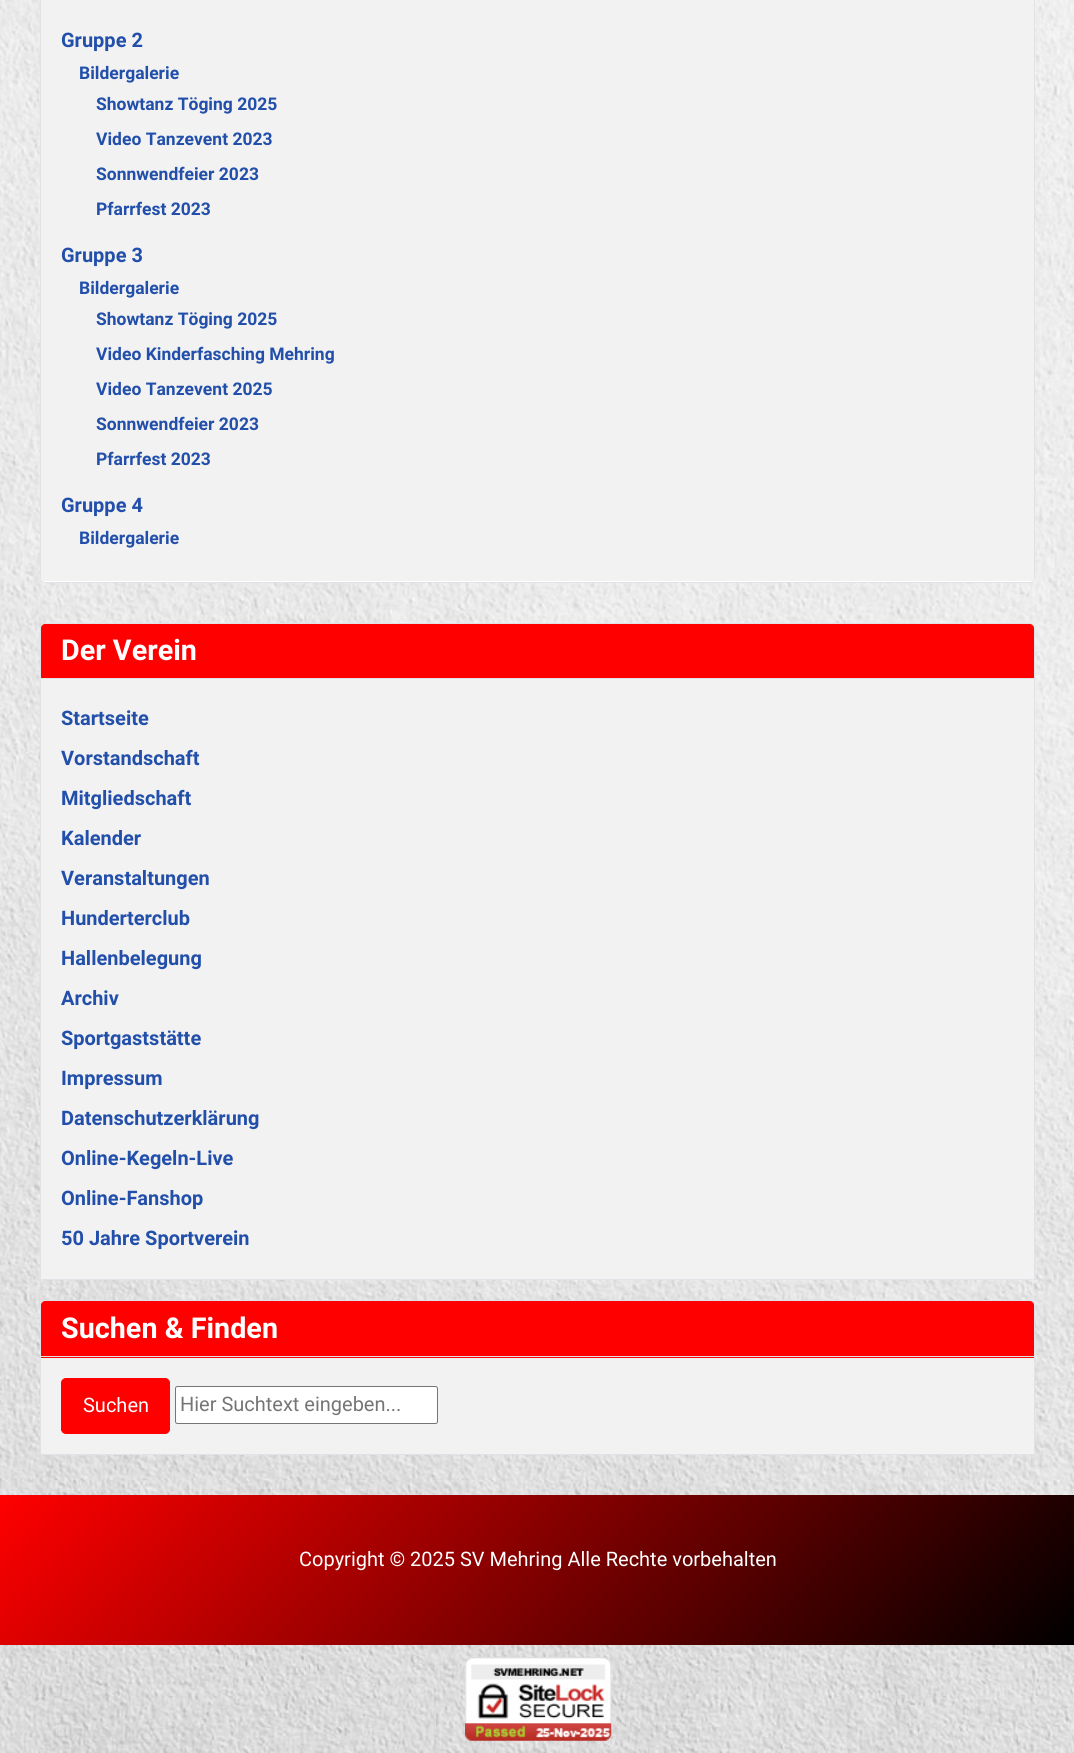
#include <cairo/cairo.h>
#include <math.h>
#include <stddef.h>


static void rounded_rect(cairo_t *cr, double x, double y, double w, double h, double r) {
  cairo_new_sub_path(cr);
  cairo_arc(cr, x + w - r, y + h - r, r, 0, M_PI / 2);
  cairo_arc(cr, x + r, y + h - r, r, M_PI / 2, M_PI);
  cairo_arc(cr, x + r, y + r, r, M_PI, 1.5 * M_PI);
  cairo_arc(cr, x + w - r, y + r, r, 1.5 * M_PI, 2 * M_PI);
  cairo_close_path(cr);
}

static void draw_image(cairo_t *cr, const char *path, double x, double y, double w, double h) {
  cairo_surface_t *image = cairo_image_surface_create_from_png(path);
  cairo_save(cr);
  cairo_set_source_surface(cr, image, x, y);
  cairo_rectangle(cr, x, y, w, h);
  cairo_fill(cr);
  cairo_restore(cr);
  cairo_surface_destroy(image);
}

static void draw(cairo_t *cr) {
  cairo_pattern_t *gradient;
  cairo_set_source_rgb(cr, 1, 1, 1);
  cairo_paint(cr);
  draw_image(cr, "images/1.png", 0, 0, 1074, 1753);
  cairo_set_source_rgb(cr, 1, 1, 1);
  rounded_rect(cr, 40.5, -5.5, 994, 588, 4.5);
  cairo_fill_preserve(cr);
  cairo_set_source_rgb(cr, 223 / 255.0, 227 / 255.0, 231 / 255.0);
  cairo_set_line_width(cr, 1);
  cairo_stroke(cr);
  cairo_set_source_rgb(cr, 242 / 255.0, 242 / 255.0, 242 / 255.0);
  cairo_rectangle(cr, 41, 0, 993, 581);
  cairo_fill(cr);
  rounded_rect(cr, 40.5, 623.5, 994, 656, 4.5);
  cairo_set_source_rgb(cr, 223 / 255.0, 227 / 255.0, 231 / 255.0);
  cairo_stroke(cr);
  cairo_set_source_rgb(cr, 1, 0, 0);
  cairo_new_path(cr);
  cairo_move_to(cr, 45, 624);
  cairo_line_to(cr, 1030, 624);
  cairo_curve_to(cr, 1032, 624, 1034, 626, 1034, 628);
  cairo_line_to(cr, 1034, 679);
  cairo_line_to(cr, 41, 679);
  cairo_line_to(cr, 41, 628);
  cairo_curve_to(cr, 41, 626, 43, 624, 45, 624);
  cairo_close_path(cr);
  cairo_fill(cr);
  cairo_set_source_rgb(cr, 223 / 255.0, 227 / 255.0, 231 / 255.0);
  cairo_rectangle(cr, 41, 678, 993, 1);
  cairo_fill(cr);
  cairo_set_source_rgb(cr, 242 / 255.0, 242 / 255.0, 242 / 255.0);
  cairo_rectangle(cr, 41, 679, 993, 600);
  cairo_fill(cr);
  rounded_rect(cr, 40.5, 1300.5, 994, 154, 4.5);
  cairo_set_source_rgb(cr, 223 / 255.0, 227 / 255.0, 231 / 255.0);
  cairo_stroke(cr);
  cairo_set_source_rgb(cr, 1, 0, 0);
  cairo_new_path(cr);
  cairo_move_to(cr, 45, 1301);
  cairo_line_to(cr, 1030, 1301);
  cairo_curve_to(cr, 1032, 1301, 1034, 1303, 1034, 1305);
  cairo_line_to(cr, 1034, 1358);
  cairo_line_to(cr, 41, 1358);
  cairo_line_to(cr, 41, 1305);
  cairo_curve_to(cr, 41, 1303, 43, 1301, 45, 1301);
  cairo_close_path(cr);
  cairo_fill(cr);
  cairo_set_source_rgb(cr, 223 / 255.0, 227 / 255.0, 231 / 255.0);
  cairo_rectangle(cr, 41, 1356, 993, 1);
  cairo_fill(cr);
  cairo_set_source_rgb(cr, 242 / 255.0, 242 / 255.0, 242 / 255.0);
  cairo_rectangle(cr, 41, 1358, 993, 96);
  cairo_fill(cr);
  cairo_set_source_rgb(cr, 1, 0, 0);
  rounded_rect(cr, 61.5, 1378.5, 108, 55, 4.5);
  cairo_fill_preserve(cr);
  cairo_stroke(cr);
  cairo_set_source_rgb(cr, 1, 1, 1);
  rounded_rect(cr, 175.5, 1386.5, 262, 37, 2);
  cairo_fill_preserve(cr);
  cairo_set_source_rgb(cr, 118 / 255.0, 118 / 255.0, 118 / 255.0);
  cairo_stroke(cr);
  gradient = cairo_pattern_create_linear(231, 1264, 844, 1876);
  cairo_pattern_add_color_stop_rgba(gradient, 0, 1, 0, 0, 1);
  cairo_pattern_add_color_stop_rgba(gradient, 1, 0, 0, 0, 1);
  cairo_set_source(cr, gradient);
  cairo_pattern_destroy(gradient);
  cairo_rectangle(cr, 0, 1495, 1074, 150);
  cairo_fill(cr);
  draw_image(cr, "images/2.png", 465, 1657, 147, 84);
  cairo_select_font_face(cr, "Roboto", CAIRO_FONT_SLANT_NORMAL, CAIRO_FONT_WEIGHT_BOLD);
  cairo_set_font_size(cr, 20);
  cairo_set_source_rgb(cr, 34 / 255.0, 79 / 255.0, 170 / 255.0);
  cairo_move_to(cr, 61, 47);
  cairo_show_text(cr, "Gruppe 2");
  cairo_set_font_size(cr, 17.5);
  cairo_move_to(cr, 79, 79);
  cairo_show_text(cr, "Bildergalerie");
  cairo_move_to(cr, 96, 110);
  cairo_show_text(cr, "Showtanz Töging 2025");
  cairo_move_to(cr, 96, 145);
  cairo_show_text(cr, "Video Tanzevent 2023");
  cairo_move_to(cr, 96, 180);
  cairo_show_text(cr, "Sonnwendfeier 2023");
  cairo_move_to(cr, 96, 215);
  cairo_show_text(cr, "Pfarrfest 2023");
  cairo_set_font_size(cr, 20);
  cairo_move_to(cr, 61, 262);
  cairo_show_text(cr, "Gruppe 3");
  cairo_set_font_size(cr, 17.5);
  cairo_move_to(cr, 79, 294);
  cairo_show_text(cr, "Bildergalerie");
  cairo_move_to(cr, 96, 325);
  cairo_show_text(cr, "Showtanz Töging 2025");
  cairo_move_to(cr, 96, 360);
  cairo_show_text(cr, "Video Kinderfasching Mehring");
  cairo_move_to(cr, 96, 395);
  cairo_show_text(cr, "Video Tanzevent 2025");
  cairo_move_to(cr, 96, 430);
  cairo_show_text(cr, "Sonnwendfeier 2023");
  cairo_move_to(cr, 96, 465);
  cairo_show_text(cr, "Pfarrfest 2023");
  cairo_set_font_size(cr, 20);
  cairo_move_to(cr, 61, 512);
  cairo_show_text(cr, "Gruppe 4");
  cairo_set_font_size(cr, 17.5);
  cairo_move_to(cr, 79, 544);
  cairo_show_text(cr, "Bildergalerie");
  cairo_set_font_size(cr, 28.75);
  cairo_set_source_rgb(cr, 1, 1, 1);
  cairo_move_to(cr, 61, 660);
  cairo_show_text(cr, "Der Verein");
  cairo_set_font_size(cr, 20);
  cairo_set_source_rgb(cr, 34 / 255.0, 79 / 255.0, 170 / 255.0);
  cairo_move_to(cr, 61, 725);
  cairo_show_text(cr, "Startseite");
  cairo_move_to(cr, 61, 765);
  cairo_show_text(cr, "Vorstandschaft");
  cairo_move_to(cr, 61, 805);
  cairo_show_text(cr, "Mitgliedschaft");
  cairo_move_to(cr, 61, 845);
  cairo_show_text(cr, "Kalender");
  cairo_move_to(cr, 61, 885);
  cairo_show_text(cr, "Veranstaltungen");
  cairo_move_to(cr, 61, 925);
  cairo_show_text(cr, "Hunderterclub");
  cairo_move_to(cr, 61, 965);
  cairo_show_text(cr, "Hallenbelegung");
  cairo_move_to(cr, 61, 1005);
  cairo_show_text(cr, "Archiv");
  cairo_move_to(cr, 61, 1045);
  cairo_show_text(cr, "Sportgaststätte");
  cairo_move_to(cr, 61, 1085);
  cairo_show_text(cr, "Impressum");
  cairo_move_to(cr, 61, 1125);
  cairo_show_text(cr, "Datenschutzerklärung");
  cairo_move_to(cr, 61, 1165);
  cairo_show_text(cr, "Online-Kegeln-Live");
  cairo_move_to(cr, 61, 1205);
  cairo_show_text(cr, "Online-Fanshop");
  cairo_move_to(cr, 61, 1245);
  cairo_show_text(cr, "50 Jahre Sportverein");
  cairo_set_font_size(cr, 28.75);
  cairo_set_source_rgb(cr, 1, 1, 1);
  cairo_move_to(cr, 61, 1338);
  cairo_show_text(cr, "Suchen & Finden");
  cairo_select_font_face(cr, "Roboto", CAIRO_FONT_SLANT_NORMAL, CAIRO_FONT_WEIGHT_NORMAL);
  cairo_set_font_size(cr, 20);
  cairo_move_to(cr, 83, 1412);
  cairo_show_text(cr, "Suchen");
  cairo_set_source_rgb(cr, 117 / 255.0, 117 / 255.0, 117 / 255.0);
  cairo_move_to(cr, 180, 1411);
  cairo_show_text(cr, "Hier Suchtext eingeben...");
  cairo_set_source_rgb(cr, 1, 1, 1);
  cairo_move_to(cr, 299, 1566);
  cairo_show_text(cr, "Copyright © 2025 SV Mehring Alle Rechte vorbehalten");
}

int main(void) {
  cairo_surface_t *surface = cairo_image_surface_create(CAIRO_FORMAT_RGB24, 1074, 1753);
  cairo_t *cr = cairo_create(surface);
  cairo_font_options_t *options = cairo_font_options_create();
  cairo_font_options_set_hint_metrics(options, CAIRO_HINT_METRICS_OFF);
  cairo_font_options_set_hint_style(options, CAIRO_HINT_STYLE_NONE);
  cairo_set_font_options(cr, options);
  cairo_set_miter_limit(cr, 4);
  draw(cr);
  cairo_surface_write_to_png(surface, "out.png");
  cairo_font_options_destroy(options);
  cairo_destroy(cr);
  cairo_surface_destroy(surface);
  return 0;
}
